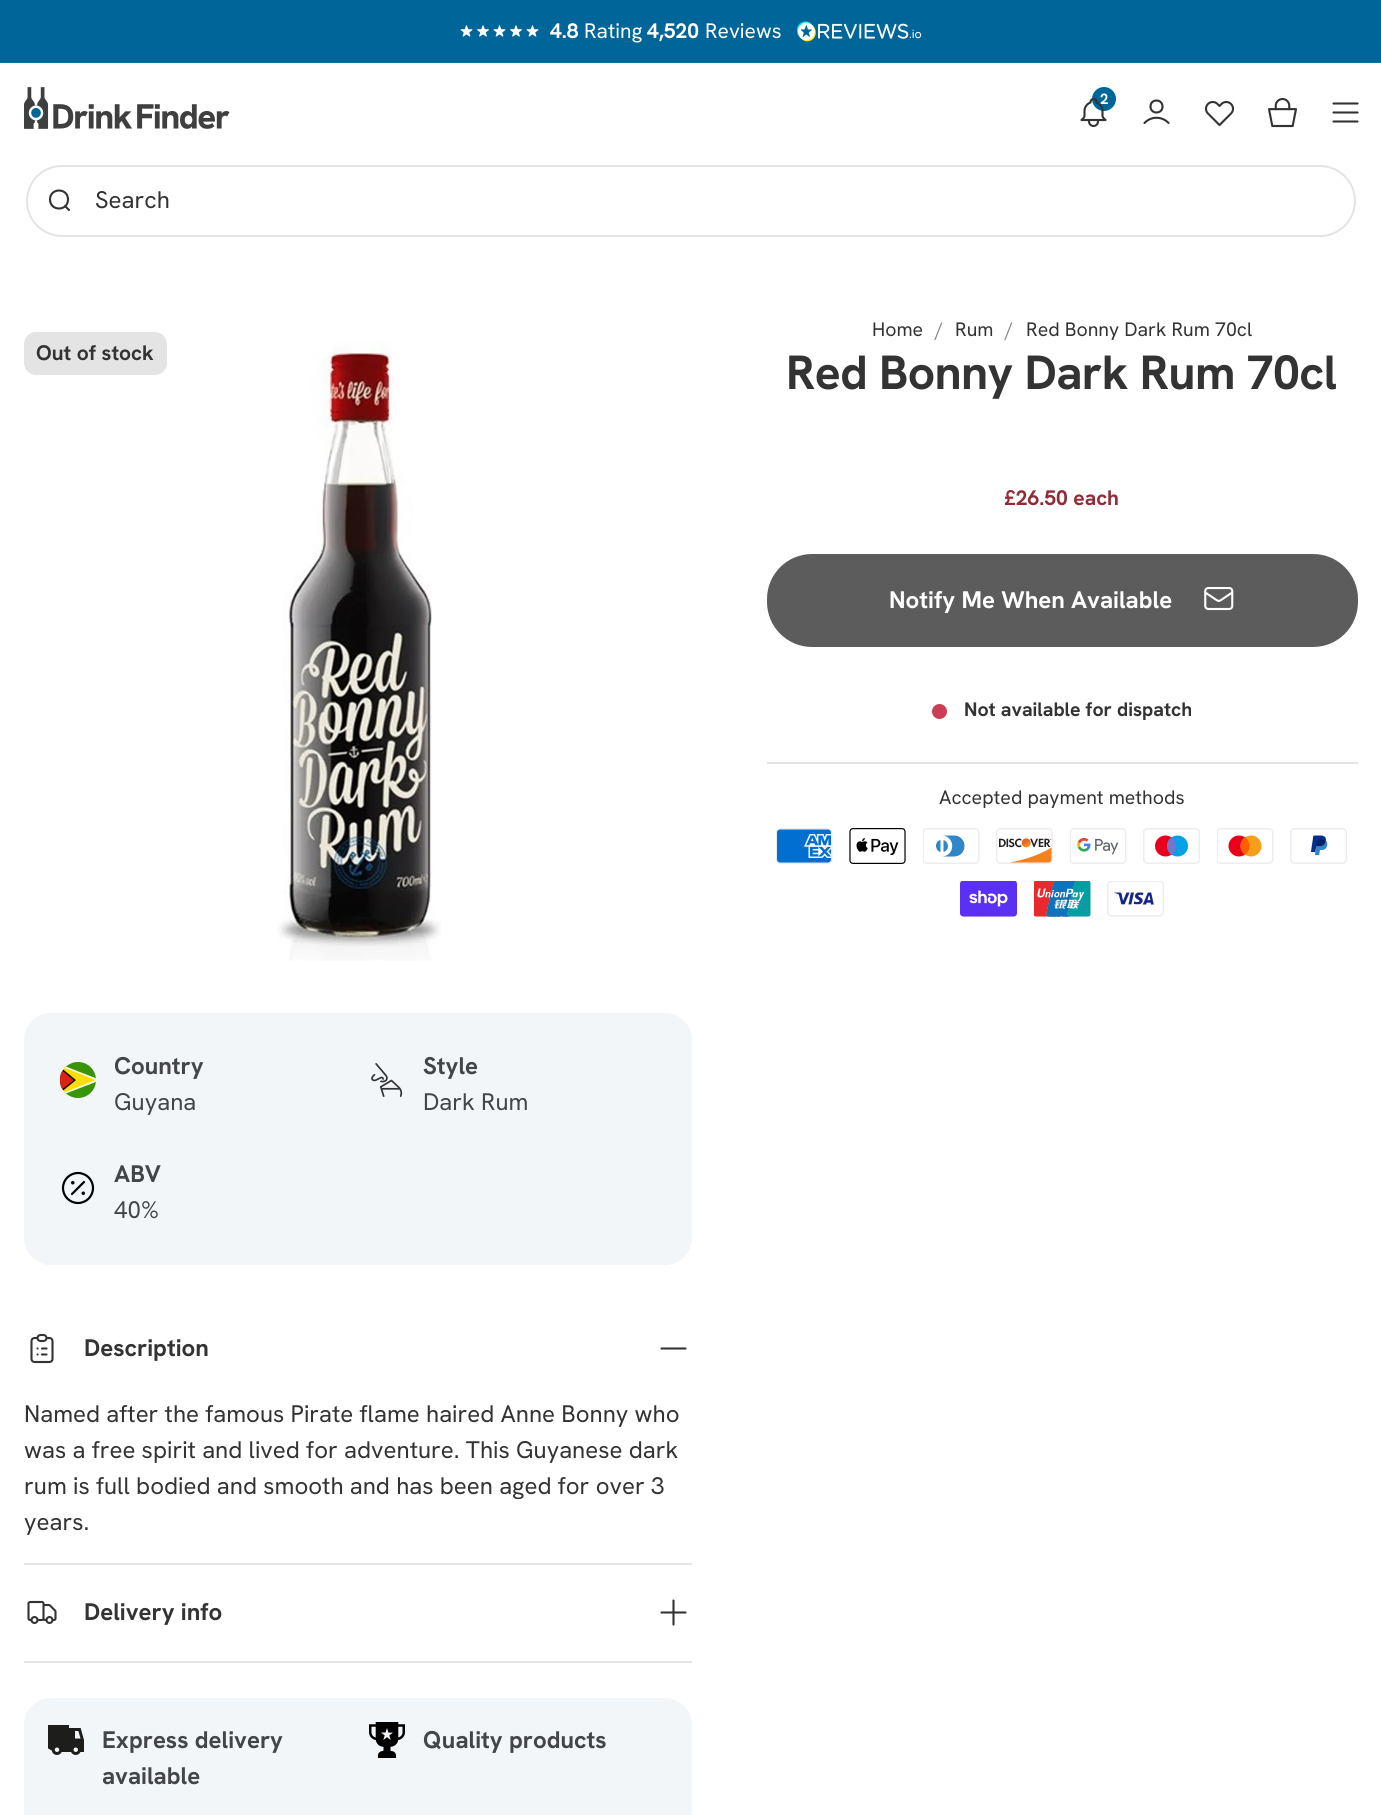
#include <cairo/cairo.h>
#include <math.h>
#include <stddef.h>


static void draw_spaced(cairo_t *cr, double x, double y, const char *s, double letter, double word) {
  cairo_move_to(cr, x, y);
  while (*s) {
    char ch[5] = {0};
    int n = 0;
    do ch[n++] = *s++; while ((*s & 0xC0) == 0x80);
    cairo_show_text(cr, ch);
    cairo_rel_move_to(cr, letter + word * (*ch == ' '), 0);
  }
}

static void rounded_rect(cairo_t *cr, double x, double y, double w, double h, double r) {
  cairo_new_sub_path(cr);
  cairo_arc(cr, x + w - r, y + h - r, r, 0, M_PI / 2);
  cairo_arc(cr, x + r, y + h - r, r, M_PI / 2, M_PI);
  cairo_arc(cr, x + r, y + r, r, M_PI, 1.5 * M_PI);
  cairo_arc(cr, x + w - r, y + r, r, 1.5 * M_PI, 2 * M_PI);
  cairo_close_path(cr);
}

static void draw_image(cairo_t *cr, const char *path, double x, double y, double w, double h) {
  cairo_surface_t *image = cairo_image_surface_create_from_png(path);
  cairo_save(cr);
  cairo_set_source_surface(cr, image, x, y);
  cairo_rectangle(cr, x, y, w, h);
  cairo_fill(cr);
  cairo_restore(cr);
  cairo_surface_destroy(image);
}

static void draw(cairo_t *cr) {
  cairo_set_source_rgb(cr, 1, 1, 1);
  cairo_paint(cr);
  cairo_set_source_rgb(cr, 0, 102 / 255.0, 153 / 255.0);
  cairo_rectangle(cr, 0, 0, 1381, 62);
  cairo_fill(cr);
  cairo_set_source_rgb(cr, 20 / 255.0, 114 / 255.0, 161 / 255.0);
  cairo_rectangle(cr, 0, 62, 1381, 1);
  cairo_fill(cr);
  draw_image(cr, "images/1.png", 460, 25, 79, 12);
  draw_image(cr, "images/2.png", 797, 21, 125, 21);
  draw_image(cr, "images/3.png", 24, 87, 206, 42);
  cairo_set_source_rgb(cr, 0, 102 / 255.0, 153 / 255.0);
  cairo_arc(cr, 1104, 99, 12, 0, 2 * M_PI);
  cairo_fill(cr);
  cairo_new_path(cr);
  cairo_move_to(cr, 1144.5, 123);
  cairo_curve_to(cr, 1151, 116, 1162, 116, 1168.5, 123);
  cairo_move_to(cr, 1162.5, 106.5);
  cairo_curve_to(cr, 1162.5, 114.5, 1150.5, 114.5, 1150.5, 106.5);
  cairo_curve_to(cr, 1150.5, 98.5, 1162.5, 98.5, 1162.5, 106.5);
  cairo_close_path(cr);
  cairo_set_source_rgb(cr, 51 / 255.0, 51 / 255.0, 51 / 255.0);
  cairo_set_line_width(cr, 2.1);
  cairo_set_line_cap(cr, CAIRO_LINE_CAP_ROUND);
  cairo_set_line_join(cr, CAIRO_LINE_JOIN_ROUND);
  cairo_stroke(cr);
  draw_image(cr, "images/5.png", 1204, 100, 31, 27);
  draw_image(cr, "images/6.png", 1268, 97, 29, 31);
  cairo_new_path(cr);
  cairo_move_to(cr, 1333.5, 103.5);
  cairo_line_to(cr, 1357.5, 103.5);
  cairo_move_to(cr, 1333.5, 112.5);
  cairo_line_to(cr, 1357.5, 112.5);
  cairo_move_to(cr, 1333.5, 121.5);
  cairo_line_to(cr, 1357.5, 121.5);
  cairo_stroke(cr);
  rounded_rect(cr, 27, 166, 1328, 70, 35);
  cairo_set_source_rgb(cr, 228 / 255.0, 228 / 255.0, 228 / 255.0);
  cairo_set_line_width(cr, 2);
  cairo_set_line_cap(cr, CAIRO_LINE_CAP_BUTT);
  cairo_set_line_join(cr, CAIRO_LINE_JOIN_MITER);
  cairo_stroke(cr);
  cairo_new_path(cr);
  cairo_move_to(cr, 69, 210);
  cairo_line_to(cr, 65, 206);
  cairo_move_to(cr, 68, 199.5);
  cairo_curve_to(cr, 68, 211.5, 50, 211.5, 50, 199.5);
  cairo_curve_to(cr, 50, 187.5, 68, 187.5, 68, 199.5);
  cairo_close_path(cr);
  cairo_set_source_rgb(cr, 51 / 255.0, 51 / 255.0, 51 / 255.0);
  cairo_set_line_width(cr, 2.1);
  cairo_set_line_cap(cr, CAIRO_LINE_CAP_ROUND);
  cairo_set_line_join(cr, CAIRO_LINE_JOIN_ROUND);
  cairo_stroke(cr);
  cairo_set_source_rgb(cr, 228 / 255.0, 228 / 255.0, 228 / 255.0);
  rounded_rect(cr, 24, 332, 143, 43, 12);
  cairo_fill(cr);
  draw_image(cr, "images/7.png", 277, 341, 164, 620);
  cairo_set_source_rgb(cr, 242 / 255.0, 246 / 255.0, 248 / 255.0);
  rounded_rect(cr, 24, 1013, 668, 252, 27);
  cairo_fill(cr);
  draw_image(cr, "images/8.png", 60, 1062, 36, 36);
  draw_image(cr, "images/9.png", 371, 1063, 32, 34);
  draw_image(cr, "images/10.png", 61, 1171, 34, 34);
  cairo_set_source_rgb(cr, 228 / 255.0, 228 / 255.0, 228 / 255.0);
  cairo_rectangle(cr, 24, 1563, 668, 2);
  cairo_fill(cr);
  draw_image(cr, "images/11.png", 30, 1333, 24, 31);
  cairo_new_path(cr);
  cairo_move_to(cr, 685.5, 1348.5);
  cairo_line_to(cr, 661.5, 1348.5);
  cairo_set_source_rgb(cr, 51 / 255.0, 51 / 255.0, 51 / 255.0);
  cairo_stroke(cr);
  cairo_set_source_rgb(cr, 228 / 255.0, 228 / 255.0, 228 / 255.0);
  cairo_rectangle(cr, 24, 1661, 668, 2);
  cairo_fill(cr);
  draw_image(cr, "images/12.png", 27, 1600, 30, 24);
  cairo_new_path(cr);
  cairo_move_to(cr, 673.5, 1600.5);
  cairo_line_to(cr, 673.5, 1624.5);
  cairo_move_to(cr, 685.5, 1612.5);
  cairo_line_to(cr, 661.5, 1612.5);
  cairo_set_source_rgb(cr, 51 / 255.0, 51 / 255.0, 51 / 255.0);
  cairo_stroke(cr);
  cairo_set_source_rgb(cr, 242 / 255.0, 246 / 255.0, 248 / 255.0);
  rounded_rect(cr, 24, 1698, 668, 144, 27);
  cairo_fill(cr);
  draw_image(cr, "images/13.png", 48, 1725, 36, 30);
  draw_image(cr, "images/14.png", 369, 1722, 36, 36);
  cairo_set_source_rgb(cr, 92 / 255.0, 92 / 255.0, 92 / 255.0);
  rounded_rect(cr, 767, 554, 591, 93, 45);
  cairo_fill(cr);
  draw_image(cr, "images/15.png", 1204, 587, 30, 24);
  cairo_set_source_rgb(cr, 201 / 255.0, 62 / 255.0, 84 / 255.0);
  cairo_arc(cr, 939.5, 711.5, 7.5, 0, 2 * M_PI);
  cairo_fill(cr);
  cairo_set_source_rgb(cr, 228 / 255.0, 228 / 255.0, 228 / 255.0);
  cairo_rectangle(cr, 767, 762, 591, 2);
  cairo_fill(cr);
  draw_image(cr, "images/16.png", 776, 828, 57, 36);
  draw_image(cr, "images/17.png", 849, 828, 57, 36);
  draw_image(cr, "images/18.png", 923, 828, 57, 36);
  draw_image(cr, "images/19.png", 996, 828, 57, 36);
  draw_image(cr, "images/20.png", 1070, 828, 57, 36);
  draw_image(cr, "images/21.png", 1143, 828, 57, 36);
  draw_image(cr, "images/22.png", 1217, 828, 57, 36);
  draw_image(cr, "images/23.png", 1290, 828, 57, 36);
  draw_image(cr, "images/24.png", 960, 881, 57, 36);
  draw_image(cr, "images/25.png", 1034, 881, 57, 36);
  draw_image(cr, "images/26.png", 1107, 881, 57, 36);
  cairo_select_font_face(cr, "Hanken Grotesk", CAIRO_FONT_SLANT_NORMAL, CAIRO_FONT_WEIGHT_BOLD);
  cairo_set_font_size(cr, 21);
  cairo_set_source_rgb(cr, 1, 1, 1);
  cairo_move_to(cr, 550, 38);
  cairo_show_text(cr, "4.8");
  cairo_select_font_face(cr, "Hanken Grotesk", CAIRO_FONT_SLANT_NORMAL, CAIRO_FONT_WEIGHT_NORMAL);
  cairo_move_to(cr, 584, 38);
  cairo_show_text(cr, "Rating");
  cairo_select_font_face(cr, "Hanken Grotesk", CAIRO_FONT_SLANT_NORMAL, CAIRO_FONT_WEIGHT_BOLD);
  cairo_move_to(cr, 647, 38);
  cairo_show_text(cr, "4,520");
  cairo_select_font_face(cr, "Hanken Grotesk", CAIRO_FONT_SLANT_NORMAL, CAIRO_FONT_WEIGHT_NORMAL);
  cairo_move_to(cr, 705, 38);
  cairo_show_text(cr, "Reviews");
  cairo_select_font_face(cr, "Hanken Grotesk", CAIRO_FONT_SLANT_NORMAL, CAIRO_FONT_WEIGHT_BOLD);
  cairo_set_font_size(cr, 15);
  cairo_move_to(cr, 1100, 104);
  cairo_show_text(cr, "2");
  draw_image(cr, "images/4.png", 1080, 98, 27, 30);
  cairo_select_font_face(cr, "Hanken Grotesk", CAIRO_FONT_SLANT_NORMAL, CAIRO_FONT_WEIGHT_NORMAL);
  cairo_set_font_size(cr, 24);
  cairo_set_source_rgb(cr, 51 / 255.0, 51 / 255.0, 51 / 255.0);
  cairo_move_to(cr, 95, 208);
  cairo_show_text(cr, "Search");
  cairo_select_font_face(cr, "Hanken Grotesk", CAIRO_FONT_SLANT_NORMAL, CAIRO_FONT_WEIGHT_BOLD);
  cairo_set_font_size(cr, 21);
  cairo_move_to(cr, 36, 360);
  cairo_show_text(cr, "Out of stock");
  cairo_set_font_size(cr, 24);
  cairo_set_source_rgb(cr, 67 / 255.0, 69 / 255.0, 72 / 255.0);
  cairo_move_to(cr, 114, 1074);
  cairo_show_text(cr, "Country");
  cairo_select_font_face(cr, "Hanken Grotesk", CAIRO_FONT_SLANT_NORMAL, CAIRO_FONT_WEIGHT_NORMAL);
  cairo_move_to(cr, 114, 1110);
  cairo_show_text(cr, "Guyana");
  cairo_select_font_face(cr, "Hanken Grotesk", CAIRO_FONT_SLANT_NORMAL, CAIRO_FONT_WEIGHT_BOLD);
  cairo_move_to(cr, 423, 1074);
  cairo_show_text(cr, "Style");
  cairo_select_font_face(cr, "Hanken Grotesk", CAIRO_FONT_SLANT_NORMAL, CAIRO_FONT_WEIGHT_NORMAL);
  cairo_move_to(cr, 423, 1110);
  cairo_show_text(cr, "Dark Rum");
  cairo_select_font_face(cr, "Hanken Grotesk", CAIRO_FONT_SLANT_NORMAL, CAIRO_FONT_WEIGHT_BOLD);
  cairo_move_to(cr, 114, 1182);
  cairo_show_text(cr, "ABV");
  cairo_select_font_face(cr, "Hanken Grotesk", CAIRO_FONT_SLANT_NORMAL, CAIRO_FONT_WEIGHT_NORMAL);
  cairo_move_to(cr, 114, 1218);
  cairo_show_text(cr, "40%");
  cairo_select_font_face(cr, "Hanken Grotesk", CAIRO_FONT_SLANT_NORMAL, CAIRO_FONT_WEIGHT_BOLD);
  cairo_set_source_rgb(cr, 51 / 255.0, 51 / 255.0, 51 / 255.0);
  cairo_move_to(cr, 84, 1356);
  cairo_show_text(cr, "Description");
  cairo_select_font_face(cr, "Hanken Grotesk", CAIRO_FONT_SLANT_NORMAL, CAIRO_FONT_WEIGHT_NORMAL);
  cairo_move_to(cr, 24, 1422);
  cairo_show_text(cr, "Named after the famous Pirate flame haired Anne Bonny who");
  cairo_move_to(cr, 24, 1458);
  cairo_show_text(cr, "was a free spirit and lived for adventure. This Guyanese dark");
  cairo_move_to(cr, 24, 1494);
  cairo_show_text(cr, "rum is full bodied and smooth and has been aged for over 3");
  cairo_move_to(cr, 24, 1530);
  cairo_show_text(cr, "years.");
  cairo_select_font_face(cr, "Hanken Grotesk", CAIRO_FONT_SLANT_NORMAL, CAIRO_FONT_WEIGHT_BOLD);
  cairo_move_to(cr, 84, 1620);
  cairo_show_text(cr, "Delivery info");
  cairo_set_source_rgb(cr, 67 / 255.0, 69 / 255.0, 72 / 255.0);
  cairo_move_to(cr, 102, 1748);
  cairo_show_text(cr, "Express delivery");
  cairo_move_to(cr, 102, 1784);
  cairo_show_text(cr, "available");
  cairo_move_to(cr, 423, 1748);
  cairo_show_text(cr, "Quality products");
  cairo_select_font_face(cr, "Hanken Grotesk", CAIRO_FONT_SLANT_NORMAL, CAIRO_FONT_WEIGHT_NORMAL);
  cairo_set_font_size(cr, 19.5);
  cairo_set_source_rgb(cr, 51 / 255.0, 51 / 255.0, 51 / 255.0);
  cairo_move_to(cr, 872, 336);
  cairo_show_text(cr, "Home");
  cairo_set_source_rgb(cr, 133 / 255.0, 133 / 255.0, 133 / 255.0);
  cairo_move_to(cr, 935, 336);
  cairo_show_text(cr, "/");
  cairo_set_source_rgb(cr, 51 / 255.0, 51 / 255.0, 51 / 255.0);
  cairo_move_to(cr, 955, 336);
  cairo_show_text(cr, "Rum");
  cairo_set_source_rgb(cr, 133 / 255.0, 133 / 255.0, 133 / 255.0);
  cairo_move_to(cr, 1005, 336);
  cairo_show_text(cr, "/");
  cairo_set_source_rgb(cr, 51 / 255.0, 51 / 255.0, 51 / 255.0);
  cairo_move_to(cr, 1026, 336);
  cairo_show_text(cr, "Red Bonny Dark Rum 70cl");
  cairo_select_font_face(cr, "Hanken Grotesk", CAIRO_FONT_SLANT_NORMAL, CAIRO_FONT_WEIGHT_BOLD);
  cairo_set_font_size(cr, 48);
  draw_spaced(cr, 786, 389, "Red Bonny Dark Rum 70cl", -0.6, 0);
  cairo_set_font_size(cr, 21);
  cairo_set_source_rgb(cr, 146 / 255.0, 43 / 255.0, 56 / 255.0);
  cairo_move_to(cr, 1004, 505);
  cairo_show_text(cr, "£26.50 each");
  cairo_set_font_size(cr, 24);
  cairo_set_source_rgb(cr, 1, 1, 1);
  cairo_move_to(cr, 889, 608);
  cairo_show_text(cr, "Notify Me When Available");
  cairo_set_font_size(cr, 19.5);
  cairo_set_source_rgb(cr, 51 / 255.0, 51 / 255.0, 51 / 255.0);
  cairo_move_to(cr, 964, 716);
  cairo_show_text(cr, "Not available for dispatch");
  cairo_select_font_face(cr, "Hanken Grotesk", CAIRO_FONT_SLANT_NORMAL, CAIRO_FONT_WEIGHT_NORMAL);
  cairo_move_to(cr, 939, 804);
  cairo_show_text(cr, "Accepted payment methods");
}

int main(void) {
  cairo_surface_t *surface = cairo_image_surface_create(CAIRO_FORMAT_RGB24, 1381, 1815);
  cairo_t *cr = cairo_create(surface);
  cairo_font_options_t *options = cairo_font_options_create();
  cairo_font_options_set_hint_metrics(options, CAIRO_HINT_METRICS_OFF);
  cairo_font_options_set_hint_style(options, CAIRO_HINT_STYLE_NONE);
  cairo_set_font_options(cr, options);
  cairo_set_miter_limit(cr, 4);
  draw(cr);
  cairo_surface_write_to_png(surface, "out.png");
  cairo_font_options_destroy(options);
  cairo_destroy(cr);
  cairo_surface_destroy(surface);
  return 0;
}
